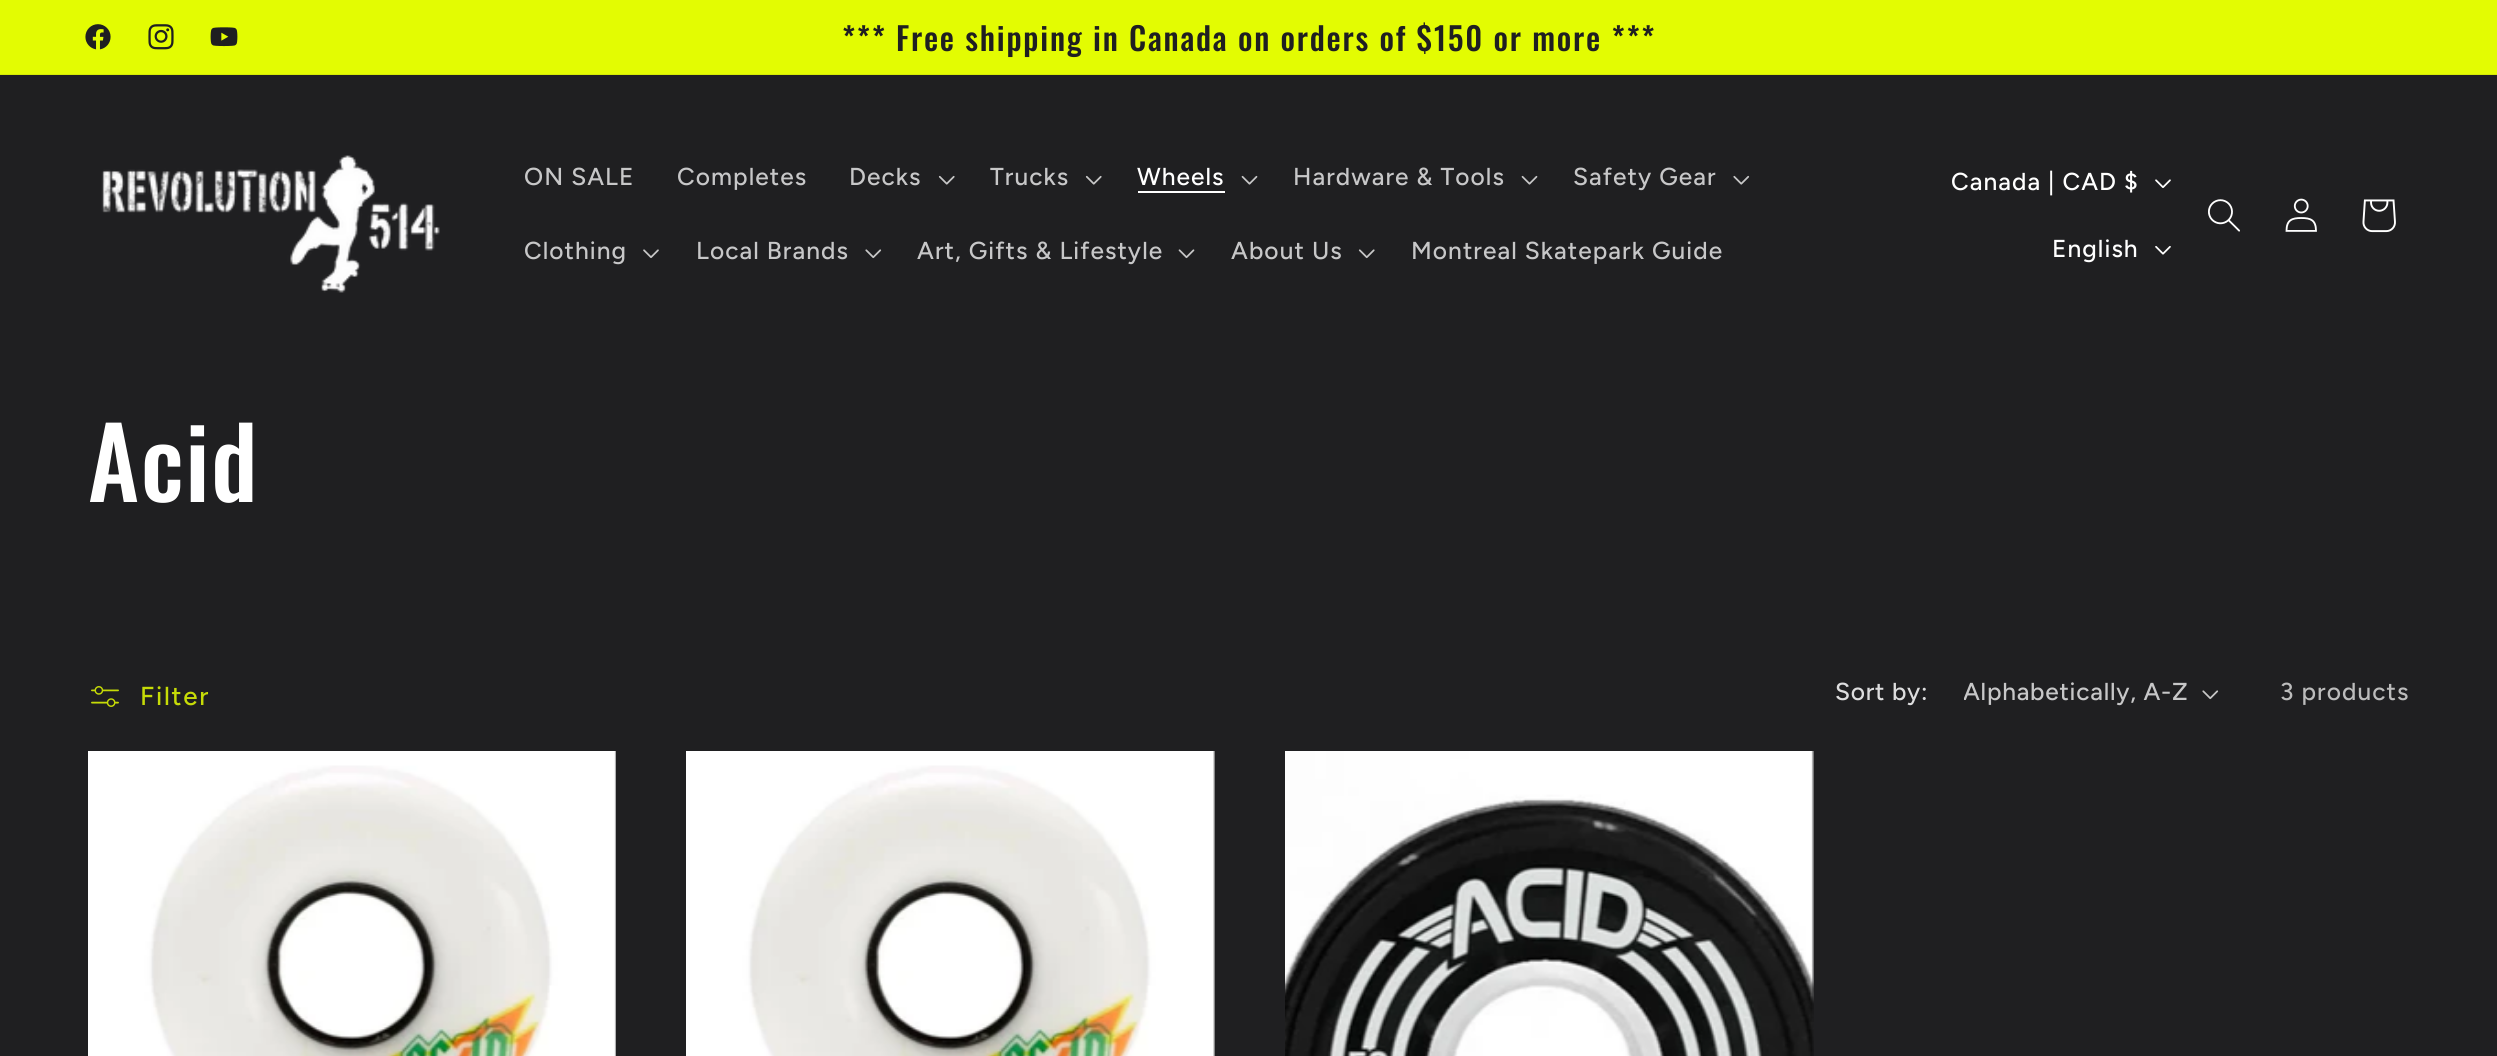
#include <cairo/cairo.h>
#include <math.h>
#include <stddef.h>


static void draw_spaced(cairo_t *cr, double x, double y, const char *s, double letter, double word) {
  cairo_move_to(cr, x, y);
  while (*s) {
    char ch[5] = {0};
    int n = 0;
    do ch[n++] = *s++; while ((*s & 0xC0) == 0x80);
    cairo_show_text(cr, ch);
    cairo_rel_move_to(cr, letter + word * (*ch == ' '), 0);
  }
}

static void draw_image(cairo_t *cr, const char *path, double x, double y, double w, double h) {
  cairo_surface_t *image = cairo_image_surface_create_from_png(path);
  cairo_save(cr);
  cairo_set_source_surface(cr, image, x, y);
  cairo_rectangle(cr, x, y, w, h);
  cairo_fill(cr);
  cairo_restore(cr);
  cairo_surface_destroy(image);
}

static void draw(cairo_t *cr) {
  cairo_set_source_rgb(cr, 31 / 255.0, 31 / 255.0, 33 / 255.0);
  cairo_paint(cr);
  cairo_set_source_rgb(cr, 227 / 255.0, 252 / 255.0, 2 / 255.0);
  cairo_rectangle(cr, 0, 0, 2497, 74);
  cairo_fill(cr);
  cairo_set_source_rgb(cr, 211 / 255.0, 234 / 255.0, 4 / 255.0);
  cairo_rectangle(cr, 0, 74, 2497, 1);
  cairo_fill(cr);
  draw_image(cr, "images/1.png", 85, 24, 26, 26);
  draw_image(cr, "images/2.png", 148, 24, 26, 26);
  draw_image(cr, "images/3.png", 210, 27, 28, 20);
  draw_image(cr, "images/4.png", 101, 155, 339, 138);
  draw_image(cr, "images/5.png", 938, 175, 17, 10);
  draw_image(cr, "images/5.png", 1085, 175, 17, 10);
  cairo_set_source_rgb(cr, 1, 1, 1);
  cairo_rectangle(cr, 1138, 191, 87, 2);
  cairo_fill(cr);
  draw_image(cr, "images/6.png", 1241, 175, 17, 10);
  draw_image(cr, "images/6.png", 1521, 175, 17, 10);
  draw_image(cr, "images/7.png", 1733, 175, 17, 10);
  draw_image(cr, "images/8.png", 643, 249, 16, 9);
  draw_image(cr, "images/9.png", 865, 249, 17, 10);
  draw_image(cr, "images/10.png", 1178, 249, 17, 10);
  draw_image(cr, "images/11.png", 1358, 249, 17, 10);
  draw_image(cr, "images/12.png", 2155, 179, 16, 9);
  draw_image(cr, "images/13.png", 2155, 246, 16, 9);
  draw_image(cr, "images/14.png", 2208, 199, 32, 33);
  draw_image(cr, "images/15.png", 2285, 198, 32, 34);
  draw_image(cr, "images/16.png", 2362, 199, 34, 34);
  draw_image(cr, "images/17.png", 91, 686, 28, 21);
  draw_image(cr, "images/9.png", 2202, 690, 17, 10);
  draw_image(cr, "images/18.png", 88, 751, 528, 305);
  draw_image(cr, "images/19.png", 686, 751, 529, 305);
  draw_image(cr, "images/20.png", 1285, 751, 529, 305);
  cairo_select_font_face(cr, "Oswald Medium", CAIRO_FONT_SLANT_NORMAL, CAIRO_FONT_WEIGHT_NORMAL);
  cairo_set_font_size(cr, 31.85);
  cairo_set_source_rgb(cr, 31 / 255.0, 31 / 255.0, 33 / 255.0);
  draw_spaced(cr, 842, 51, "*** Free shipping in Canada on orders of $150 or more ***", 1.75, 0);
  cairo_select_font_face(cr, "Figtree Medium", CAIRO_FONT_SLANT_NORMAL, CAIRO_FONT_WEIGHT_NORMAL);
  cairo_set_font_size(cr, 24.5);
  cairo_set_source_rgb(cr, 199 / 255.0, 199 / 255.0, 200 / 255.0);
  draw_spaced(cr, 524, 185, "ON SALE", 1.05, 0);
  draw_spaced(cr, 677, 185, "Completes", 1.05, 0);
  draw_spaced(cr, 849, 185, "Decks", 1.05, 0);
  draw_spaced(cr, 990, 185, "Trucks", 1.05, 0);
  cairo_set_source_rgb(cr, 1, 1, 1);
  draw_spaced(cr, 1137, 185, "Wheels", 1.05, 0);
  cairo_set_source_rgb(cr, 199 / 255.0, 199 / 255.0, 200 / 255.0);
  draw_spaced(cr, 1293, 185, "Hardware & Tools", 1.05, 0);
  draw_spaced(cr, 1573, 185, "Safety Gear", 1.05, 0);
  draw_spaced(cr, 524, 259, "Clothing", 1.05, 0);
  draw_spaced(cr, 696, 259, "Local Brands", 1.05, 0);
  draw_spaced(cr, 917, 259, "Art, Gifts & Lifestyle", 1.05, 0);
  draw_spaced(cr, 1231, 259, "About Us", 1.05, 0);
  draw_spaced(cr, 1411, 259, "Montreal Skatepark Guide", 1.05, 0);
  cairo_set_source_rgb(cr, 1, 1, 1);
  draw_spaced(cr, 1951, 190, "Canada | CAD $", 1.05, 0);
  draw_spaced(cr, 2052, 257, "English", 1.05, 0);
  cairo_select_font_face(cr, "Oswald Medium", CAIRO_FONT_SLANT_NORMAL, CAIRO_FONT_WEIGHT_NORMAL);
  cairo_set_font_size(cr, 98);
  draw_spaced(cr, 88, 502, "Acid", 1.5, 0);
  cairo_select_font_face(cr, "Figtree Medium", CAIRO_FONT_SLANT_NORMAL, CAIRO_FONT_WEIGHT_NORMAL);
  cairo_set_font_size(cr, 26);
  cairo_set_source_rgb(cr, 198 / 255.0, 219 / 255.0, 7 / 255.0);
  draw_spaced(cr, 140, 705, "Filter", 1.75, 0);
  cairo_set_font_size(cr, 24.5);
  cairo_set_source_rgb(cr, 221 / 255.0, 221 / 255.0, 222 / 255.0);
  draw_spaced(cr, 1835, 700, "Sort by:", 0.75, 0);
  cairo_save(cr);
  cairo_rectangle(cr, 1964, 674, 225, 37);
  cairo_clip(cr);
  cairo_set_source_rgb(cr, 199 / 255.0, 199 / 255.0, 200 / 255.0);
  draw_spaced(cr, 1963, 700, "Alphabetically, A-Z", 0.75, 0);
  cairo_restore(cr);
  cairo_set_source_rgb(cr, 188 / 255.0, 188 / 255.0, 188 / 255.0);
  draw_spaced(cr, 2280, 700, "3 products", 1.05, 0);
}

int main(void) {
  cairo_surface_t *surface = cairo_image_surface_create(CAIRO_FORMAT_RGB24, 2497, 1056);
  cairo_t *cr = cairo_create(surface);
  cairo_font_options_t *options = cairo_font_options_create();
  cairo_font_options_set_hint_metrics(options, CAIRO_HINT_METRICS_OFF);
  cairo_font_options_set_hint_style(options, CAIRO_HINT_STYLE_NONE);
  cairo_set_font_options(cr, options);
  cairo_set_miter_limit(cr, 4);
  draw(cr);
  cairo_surface_write_to_png(surface, "out.png");
  cairo_font_options_destroy(options);
  cairo_destroy(cr);
  cairo_surface_destroy(surface);
  return 0;
}
